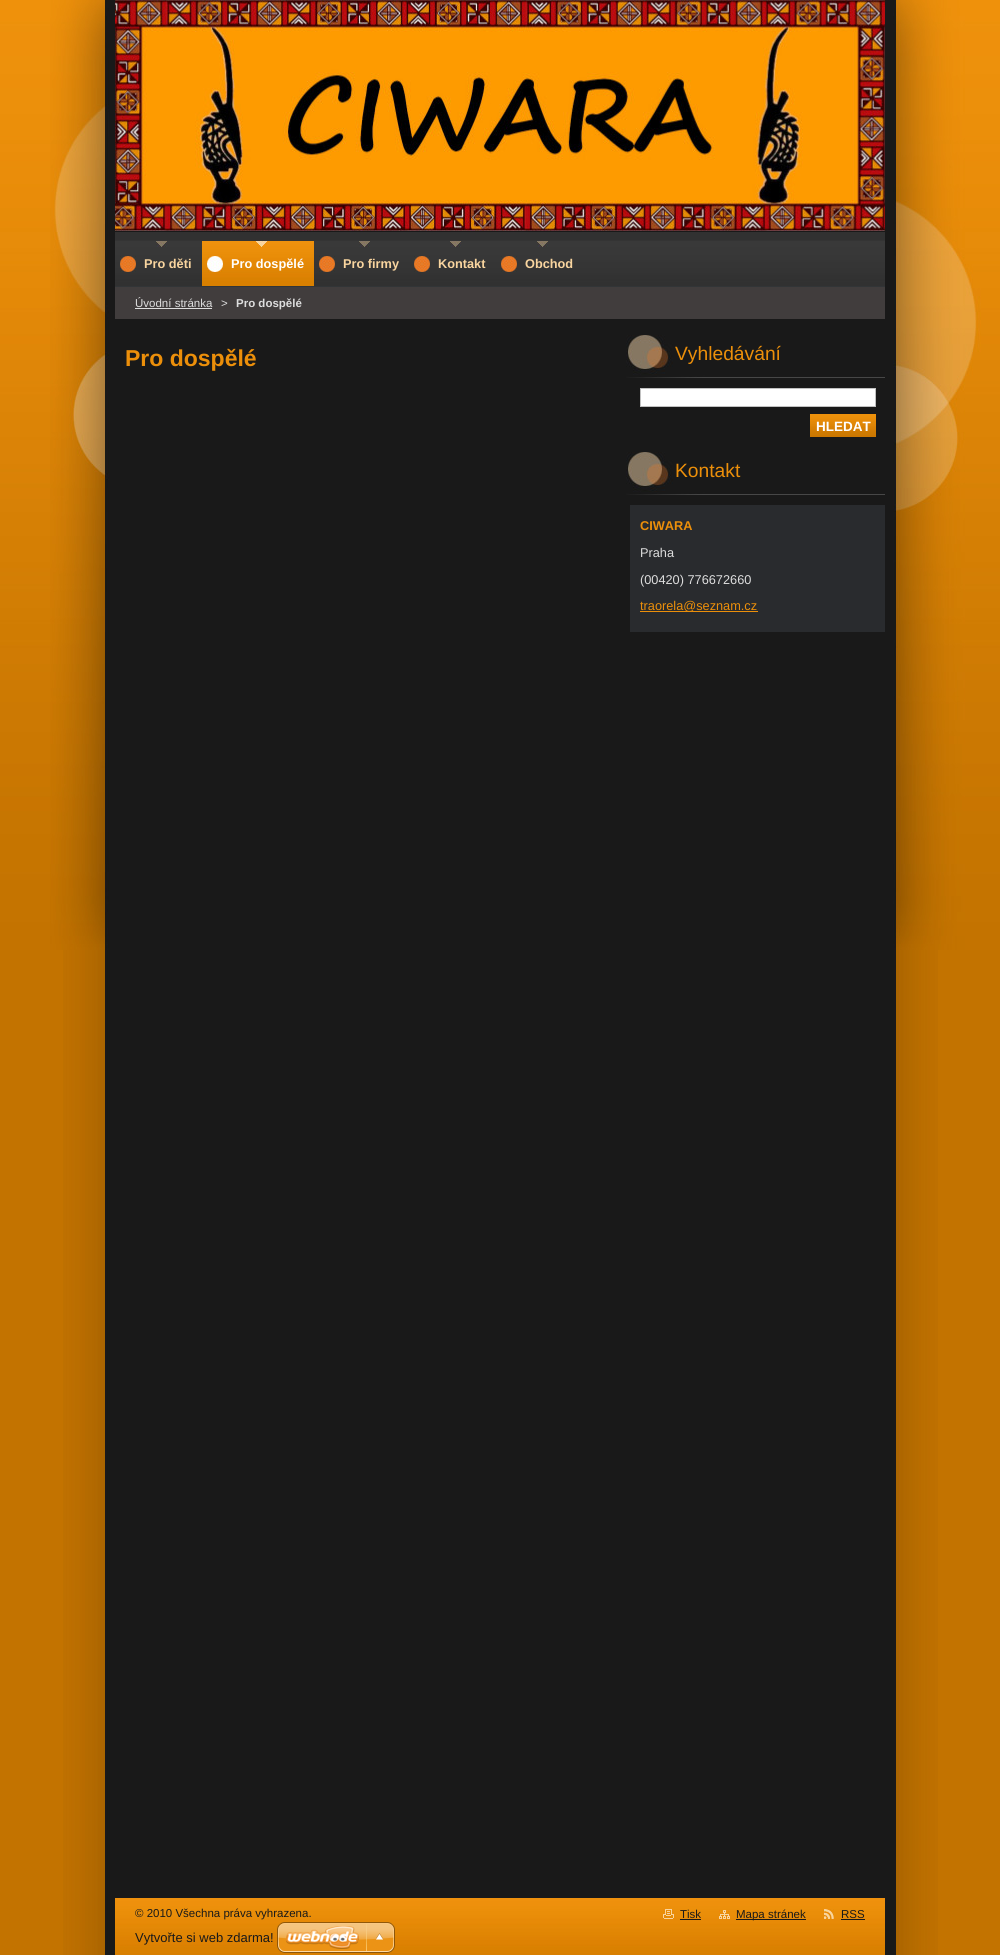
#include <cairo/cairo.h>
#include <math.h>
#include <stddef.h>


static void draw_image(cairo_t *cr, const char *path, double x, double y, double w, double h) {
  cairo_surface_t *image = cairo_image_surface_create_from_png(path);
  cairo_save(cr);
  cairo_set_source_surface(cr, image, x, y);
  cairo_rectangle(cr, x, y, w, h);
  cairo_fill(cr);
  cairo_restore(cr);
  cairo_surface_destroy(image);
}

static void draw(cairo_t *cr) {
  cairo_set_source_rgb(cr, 195 / 255.0, 115 / 255.0, 0);
  cairo_paint(cr);
  draw_image(cr, "images/1.png", 63, 950, 875, 1005);
  draw_image(cr, "images/2.png", 0, 0, 1000, 950);
  draw_image(cr, "images/3.png", 50, 0, 931, 950);
  cairo_set_source_rgb(cr, 49 / 255.0, 49 / 255.0, 49 / 255.0);
  cairo_rectangle(cr, 115, 232, 770, 8);
  cairo_fill(cr);
  draw_image(cr, "images/4.png", 115, 0, 770, 231);
  draw_image(cr, "images/5.png", 115, 241, 770, 45);
  cairo_set_source_rgb(cr, 52 / 255.0, 52 / 255.0, 52 / 255.0);
  cairo_rectangle(cr, 115, 240, 770, 1);
  cairo_fill(cr);
  cairo_set_source_rgb(cr, 50 / 255.0, 53 / 255.0, 55 / 255.0);
  cairo_rectangle(cr, 115, 286, 770, 1);
  cairo_fill(cr);
  draw_image(cr, "images/6.png", 120, 256, 16, 16);
  draw_image(cr, "images/7.png", 156, 241, 11, 6);
  draw_image(cr, "images/8.png", 202, 241, 112, 45);
  draw_image(cr, "images/9.png", 207, 256, 16, 16);
  draw_image(cr, "images/10.png", 256, 241, 11, 6);
  draw_image(cr, "images/6.png", 319, 256, 16, 16);
  draw_image(cr, "images/7.png", 359, 241, 11, 6);
  draw_image(cr, "images/6.png", 414, 256, 16, 16);
  draw_image(cr, "images/7.png", 450, 241, 11, 6);
  draw_image(cr, "images/6.png", 501, 256, 16, 16);
  draw_image(cr, "images/7.png", 537, 241, 11, 6);
  cairo_set_source_rgb(cr, 65 / 255.0, 61 / 255.0, 61 / 255.0);
  cairo_rectangle(cr, 115, 287, 770, 32);
  cairo_fill(cr);
  cairo_set_source_rgb(cr, 221 / 255.0, 221 / 255.0, 221 / 255.0);
  cairo_rectangle(cr, 135, 308, 77, 1);
  cairo_fill(cr);
  draw_image(cr, "images/11.png", 626, 335, 259, 43);
  cairo_set_source_rgb(cr, 1, 1, 1);
  cairo_rectangle(cr, 640.5, 388.5, 235, 18);
  cairo_fill_preserve(cr);
  cairo_set_source_rgb(cr, 193 / 255.0, 193 / 255.0, 193 / 255.0);
  cairo_set_line_width(cr, 1);
  cairo_stroke(cr);
  draw_image(cr, "images/12.png", 810, 414, 66, 23);
  draw_image(cr, "images/11.png", 626, 452, 259, 43);
  cairo_set_source_rgb(cr, 41 / 255.0, 43 / 255.0, 46 / 255.0);
  cairo_rectangle(cr, 630, 505, 255, 127);
  cairo_fill(cr);
  cairo_set_source_rgb(cr, 236 / 255.0, 143 / 255.0, 10 / 255.0);
  cairo_rectangle(cr, 640, 611, 118, 1);
  cairo_fill(cr);
  draw_image(cr, "images/13.png", 115, 1898, 770, 57);
  draw_image(cr, "images/14.png", 663, 1909, 11, 10);
  cairo_set_source_rgb(cr, 25 / 255.0, 25 / 255.0, 25 / 255.0);
  cairo_rectangle(cr, 680, 1919, 21, 1);
  cairo_fill(cr);
  draw_image(cr, "images/15.png", 719, 1910, 11, 9);
  cairo_rectangle(cr, 736, 1919, 70, 1);
  cairo_fill(cr);
  draw_image(cr, "images/16.png", 824, 1909, 10, 10);
  cairo_rectangle(cr, 841, 1919, 24, 1);
  cairo_fill(cr);
  draw_image(cr, "images/17.png", 277, 1922, 118, 31);
  cairo_select_font_face(cr, "Liberation Sans", CAIRO_FONT_SLANT_NORMAL, CAIRO_FONT_WEIGHT_BOLD);
  cairo_set_font_size(cr, 12.75);
  cairo_set_source_rgb(cr, 249 / 255.0, 213 / 255.0, 159 / 255.0);
  cairo_move_to(cr, 144, 268);
  cairo_show_text(cr, "Pro děti");
  cairo_set_source_rgb(cr, 1, 1, 1);
  cairo_move_to(cr, 231, 268);
  cairo_show_text(cr, "Pro dospělé");
  cairo_set_source_rgb(cr, 249 / 255.0, 213 / 255.0, 159 / 255.0);
  cairo_move_to(cr, 343, 268);
  cairo_show_text(cr, "Pro firmy");
  cairo_move_to(cr, 438, 268);
  cairo_show_text(cr, "Kontakt");
  cairo_move_to(cr, 525, 268);
  cairo_show_text(cr, "Obchod");
  cairo_select_font_face(cr, "Liberation Sans", CAIRO_FONT_SLANT_NORMAL, CAIRO_FONT_WEIGHT_NORMAL);
  cairo_set_font_size(cr, 11.5);
  cairo_set_source_rgb(cr, 221 / 255.0, 221 / 255.0, 221 / 255.0);
  cairo_move_to(cr, 135, 307);
  cairo_show_text(cr, "Úvodní stránka");
  cairo_move_to(cr, 221, 307);
  cairo_show_text(cr, ">");
  cairo_select_font_face(cr, "Liberation Sans", CAIRO_FONT_SLANT_NORMAL, CAIRO_FONT_WEIGHT_BOLD);
  cairo_move_to(cr, 236, 307);
  cairo_show_text(cr, "Pro dospělé");
  cairo_set_font_size(cr, 23);
  cairo_set_source_rgb(cr, 236 / 255.0, 143 / 255.0, 10 / 255.0);
  cairo_move_to(cr, 125, 366);
  cairo_show_text(cr, "Pro dospělé");
  cairo_select_font_face(cr, "Liberation Sans", CAIRO_FONT_SLANT_NORMAL, CAIRO_FONT_WEIGHT_NORMAL);
  cairo_set_font_size(cr, 19.25);
  cairo_move_to(cr, 675, 360);
  cairo_show_text(cr, "Vyhledávání");
  cairo_select_font_face(cr, "Liberation Sans", CAIRO_FONT_SLANT_NORMAL, CAIRO_FONT_WEIGHT_BOLD);
  cairo_set_font_size(cr, 13.5);
  cairo_set_source_rgb(cr, 1, 1, 1);
  cairo_move_to(cr, 816, 431);
  cairo_show_text(cr, "HLEDAT");
  cairo_select_font_face(cr, "Liberation Sans", CAIRO_FONT_SLANT_NORMAL, CAIRO_FONT_WEIGHT_NORMAL);
  cairo_set_font_size(cr, 19.25);
  cairo_set_source_rgb(cr, 236 / 255.0, 143 / 255.0, 10 / 255.0);
  cairo_move_to(cr, 675, 477);
  cairo_show_text(cr, "Kontakt");
  cairo_select_font_face(cr, "Liberation Sans", CAIRO_FONT_SLANT_NORMAL, CAIRO_FONT_WEIGHT_BOLD);
  cairo_set_font_size(cr, 12.75);
  cairo_move_to(cr, 640, 530);
  cairo_show_text(cr, "CIWARA");
  cairo_select_font_face(cr, "Liberation Sans", CAIRO_FONT_SLANT_NORMAL, CAIRO_FONT_WEIGHT_NORMAL);
  cairo_set_source_rgb(cr, 221 / 255.0, 221 / 255.0, 221 / 255.0);
  cairo_move_to(cr, 640, 557);
  cairo_show_text(cr, "Praha");
  cairo_move_to(cr, 640, 584);
  cairo_show_text(cr, "(00420) 776672660");
  cairo_set_source_rgb(cr, 236 / 255.0, 143 / 255.0, 10 / 255.0);
  cairo_move_to(cr, 640, 610);
  cairo_show_text(cr, "traorela@seznam.cz");
  cairo_set_font_size(cr, 11.5);
  cairo_set_source_rgb(cr, 25 / 255.0, 25 / 255.0, 25 / 255.0);
  cairo_move_to(cr, 135, 1917);
  cairo_show_text(cr, "© 2010 Všechna práva vyhrazena.");
  cairo_move_to(cr, 680, 1918);
  cairo_show_text(cr, "Tisk");
  cairo_move_to(cr, 736, 1918);
  cairo_show_text(cr, "Mapa stránek");
  cairo_move_to(cr, 841, 1918);
  cairo_show_text(cr, "RSS");
  cairo_set_font_size(cr, 13);
  cairo_move_to(cr, 135, 1942);
  cairo_show_text(cr, "Vytvořte si web zdarma!");
}

int main(void) {
  cairo_surface_t *surface = cairo_image_surface_create(CAIRO_FORMAT_RGB24, 1000, 1955);
  cairo_t *cr = cairo_create(surface);
  cairo_font_options_t *options = cairo_font_options_create();
  cairo_font_options_set_hint_metrics(options, CAIRO_HINT_METRICS_OFF);
  cairo_font_options_set_hint_style(options, CAIRO_HINT_STYLE_NONE);
  cairo_set_font_options(cr, options);
  cairo_set_miter_limit(cr, 4);
  draw(cr);
  cairo_surface_write_to_png(surface, "out.png");
  cairo_font_options_destroy(options);
  cairo_destroy(cr);
  cairo_surface_destroy(surface);
  return 0;
}
